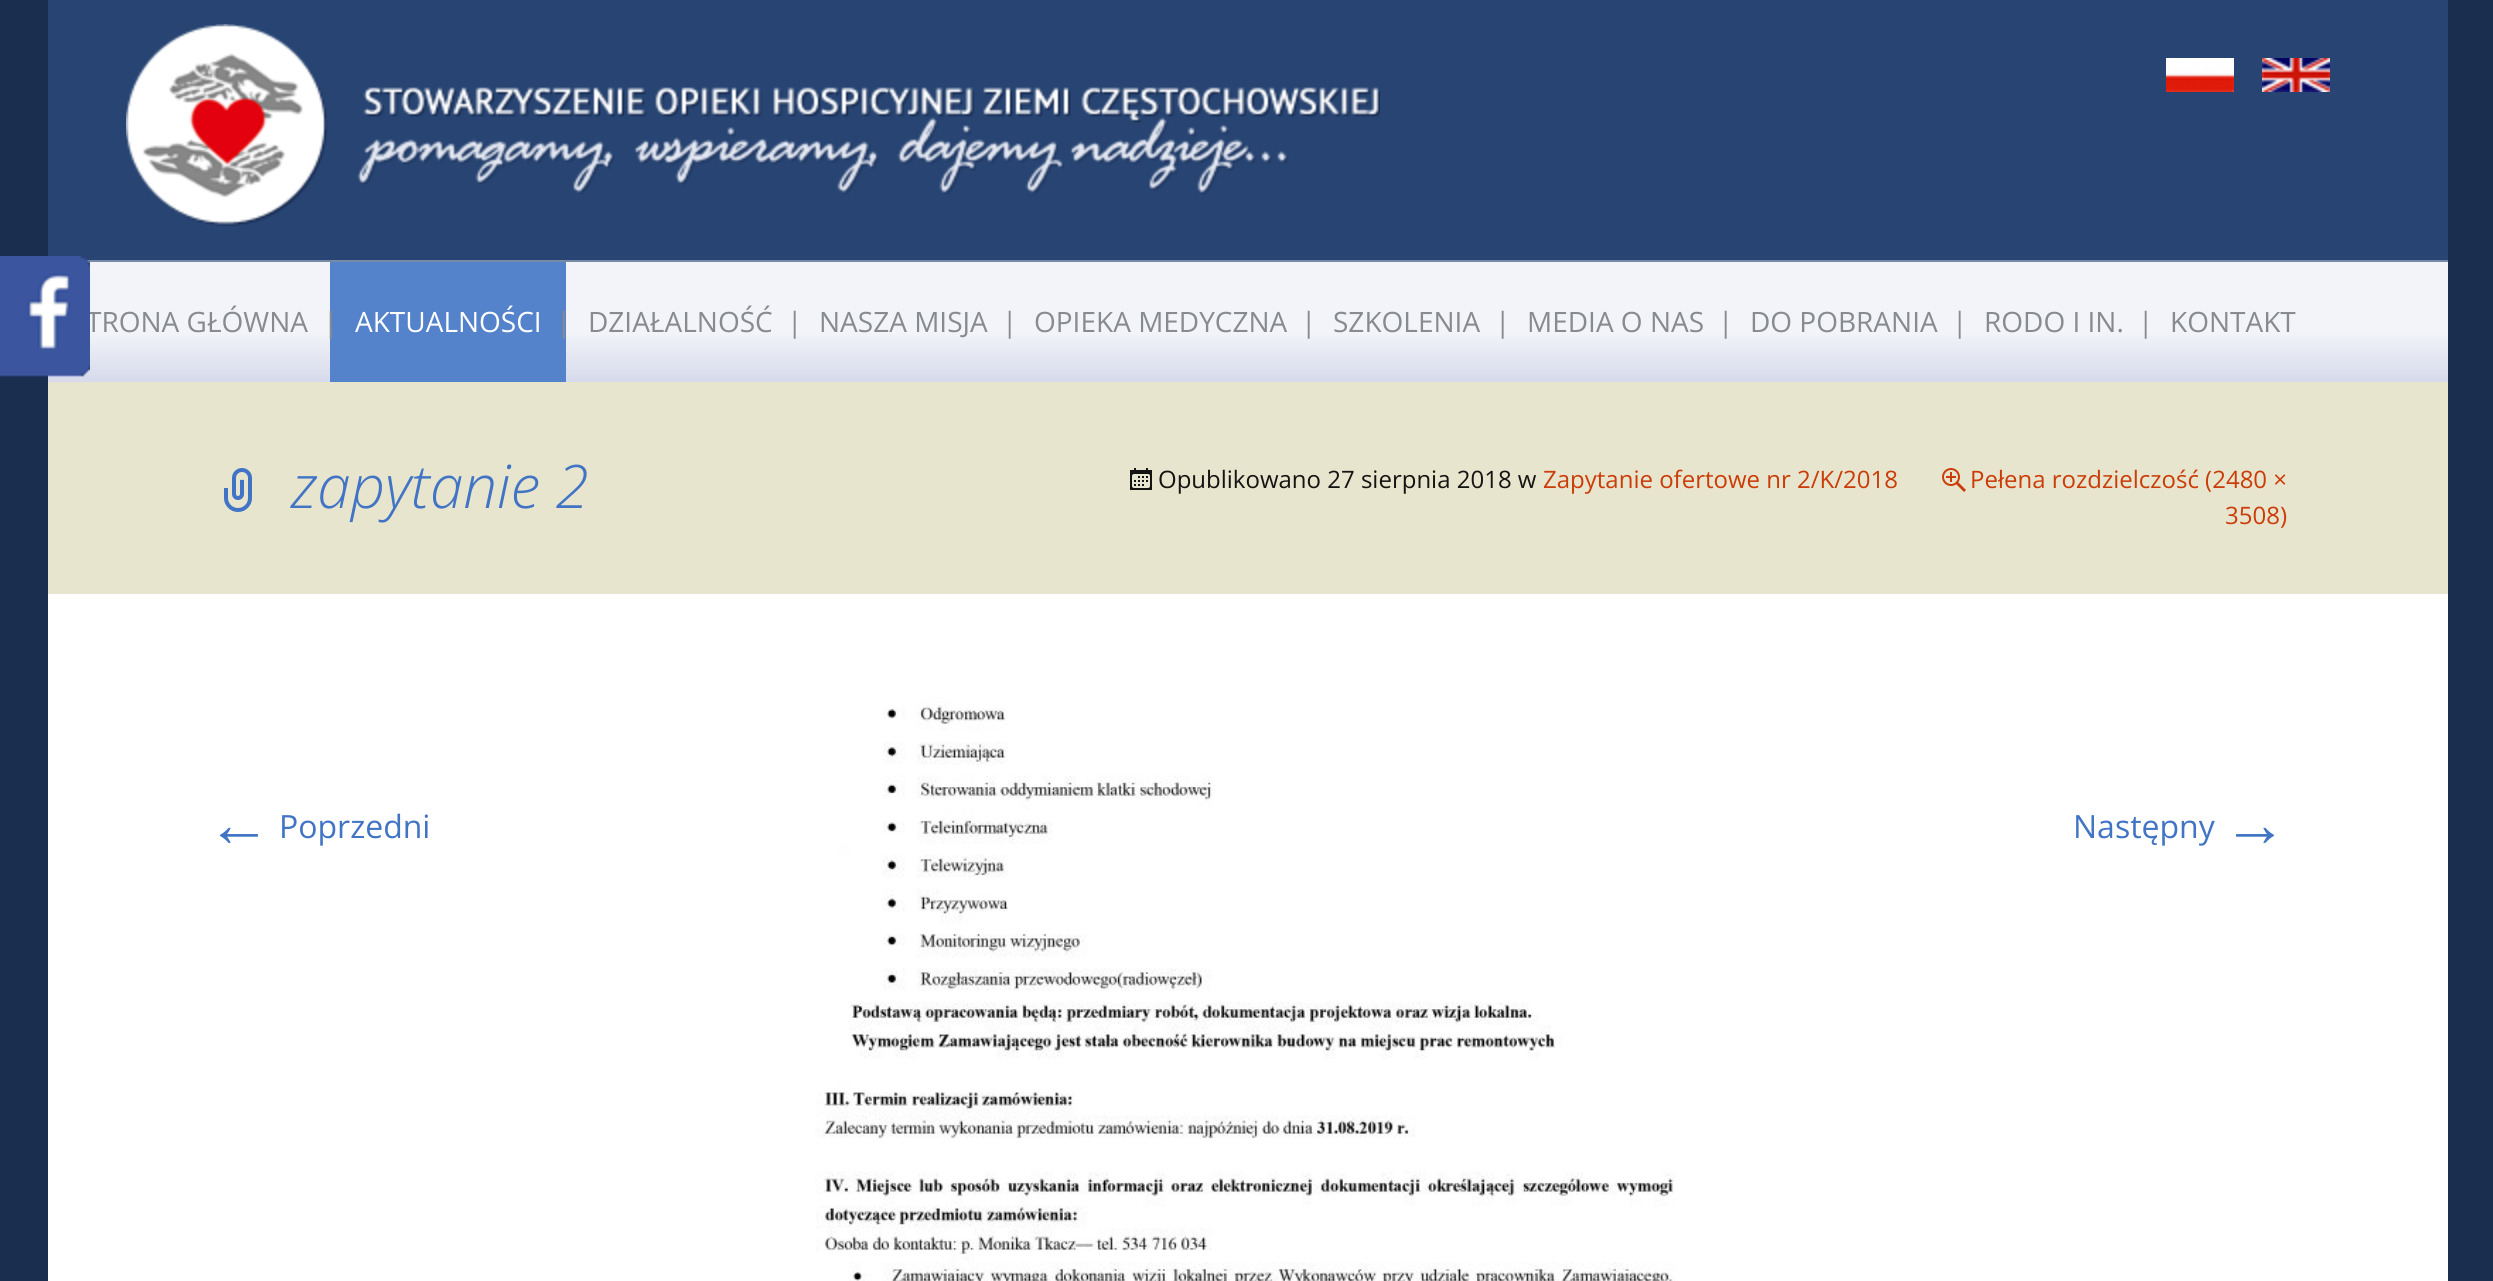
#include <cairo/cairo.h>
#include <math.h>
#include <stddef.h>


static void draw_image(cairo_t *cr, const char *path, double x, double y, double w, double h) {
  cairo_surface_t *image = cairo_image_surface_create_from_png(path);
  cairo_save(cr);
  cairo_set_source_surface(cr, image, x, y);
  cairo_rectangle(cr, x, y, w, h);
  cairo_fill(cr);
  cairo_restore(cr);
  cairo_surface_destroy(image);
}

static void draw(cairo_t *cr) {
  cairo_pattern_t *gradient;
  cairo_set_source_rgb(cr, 26 / 255.0, 46 / 255.0, 79 / 255.0);
  cairo_paint(cr);
  cairo_set_source_rgb(cr, 39 / 255.0, 68 / 255.0, 114 / 255.0);
  cairo_rectangle(cr, 48, 0, 2400, 260);
  cairo_fill(cr);
  draw_image(cr, "images/2.png", 126, 24, 1254, 202);
  draw_image(cr, "images/3.png", 2166, 58, 68, 34);
  draw_image(cr, "images/4.png", 2262, 58, 68, 34);
  gradient = cairo_pattern_create_linear(1248, 262, 1248, 382);
  cairo_pattern_add_color_stop_rgba(gradient, 0.58, 242 / 255.0, 244 / 255.0, 249 / 255.0, 1);
  cairo_pattern_add_color_stop_rgba(gradient, 1, 214 / 255.0, 218 / 255.0, 235 / 255.0, 1);
  cairo_set_source(cr, gradient);
  cairo_pattern_destroy(gradient);
  cairo_rectangle(cr, 48, 262, 2400, 120);
  cairo_fill(cr);
  cairo_set_source_rgb(cr, 120 / 255.0, 138 / 255.0, 168 / 255.0);
  cairo_rectangle(cr, 85, 260, 2363, 2);
  cairo_fill(cr);
  cairo_set_source_rgb(cr, 84 / 255.0, 130 / 255.0, 203 / 255.0);
  cairo_rectangle(cr, 330, 262, 236, 120);
  cairo_fill(cr);
  cairo_set_source_rgb(cr, 232 / 255.0, 229 / 255.0, 206 / 255.0);
  cairo_rectangle(cr, 48, 382, 2400, 212);
  cairo_fill(cr);
  draw_image(cr, "images/5.png", 224, 468, 28, 44);
  draw_image(cr, "images/6.png", 1130, 468, 22, 22);
  draw_image(cr, "images/7.png", 1942, 468, 24, 24);
  cairo_set_source_rgb(cr, 1, 1, 1);
  cairo_rectangle(cr, 48, 594, 2400, 687);
  cairo_fill(cr);
  draw_image(cr, "images/8.png", 815, 697, 860, 584);
  cairo_select_font_face(cr, "Open Sans", CAIRO_FONT_SLANT_NORMAL, CAIRO_FONT_WEIGHT_NORMAL);
  cairo_set_font_size(cr, 28);
  cairo_set_source_rgb(cr, 135 / 255.0, 138 / 255.0, 143 / 255.0);
  cairo_move_to(cr, 86, 332);
  cairo_show_text(cr, "TRONA GŁÓWNA");
  draw_image(cr, "images/1.png", 0, 256, 90, 121);
  cairo_move_to(cr, 323, 332);
  cairo_show_text(cr, "|");
  cairo_set_source_rgb(cr, 1, 1, 1);
  cairo_move_to(cr, 355, 332);
  cairo_show_text(cr, "AKTUALNOŚCI");
  cairo_set_source_rgb(cr, 135 / 255.0, 138 / 255.0, 143 / 255.0);
  cairo_move_to(cr, 556, 332);
  cairo_show_text(cr, "|");
  cairo_move_to(cr, 588, 332);
  cairo_show_text(cr, "DZIAŁALNOŚĆ");
  cairo_move_to(cr, 787, 332);
  cairo_show_text(cr, "|");
  cairo_move_to(cr, 819, 332);
  cairo_show_text(cr, "NASZA MISJA");
  cairo_move_to(cr, 1002, 332);
  cairo_show_text(cr, "|");
  cairo_move_to(cr, 1034, 332);
  cairo_show_text(cr, "OPIEKA MEDYCZNA");
  cairo_move_to(cr, 1301, 332);
  cairo_show_text(cr, "|");
  cairo_move_to(cr, 1333, 332);
  cairo_show_text(cr, "SZKOLENIA");
  cairo_move_to(cr, 1495, 332);
  cairo_show_text(cr, "|");
  cairo_move_to(cr, 1527, 332);
  cairo_show_text(cr, "MEDIA O NAS");
  cairo_move_to(cr, 1718, 332);
  cairo_show_text(cr, "|");
  cairo_move_to(cr, 1750, 332);
  cairo_show_text(cr, "DO POBRANIA");
  cairo_move_to(cr, 1952, 332);
  cairo_show_text(cr, "|");
  cairo_move_to(cr, 1984, 332);
  cairo_show_text(cr, "RODO I IN.");
  cairo_move_to(cr, 2138, 332);
  cairo_show_text(cr, "|");
  cairo_move_to(cr, 2170, 332);
  cairo_show_text(cr, "KONTAKT");
  cairo_select_font_face(cr, "Open Sans Light", CAIRO_FONT_SLANT_ITALIC, CAIRO_FONT_WEIGHT_NORMAL);
  cairo_set_font_size(cr, 60);
  cairo_set_source_rgb(cr, 65 / 255.0, 116 / 255.0, 197 / 255.0);
  cairo_move_to(cr, 291, 508);
  cairo_show_text(cr, "zapytanie 2");
  cairo_select_font_face(cr, "Open Sans", CAIRO_FONT_SLANT_NORMAL, CAIRO_FONT_WEIGHT_NORMAL);
  cairo_set_font_size(cr, 24);
  cairo_set_source_rgb(cr, 20 / 255.0, 20 / 255.0, 18 / 255.0);
  cairo_move_to(cr, 1158, 488);
  cairo_show_text(cr, "Opublikowano 27 sierpnia 2018 w");
  cairo_set_source_rgb(cr, 202 / 255.0, 60 / 255.0, 8 / 255.0);
  cairo_move_to(cr, 1543, 488);
  cairo_show_text(cr, "Zapytanie ofertowe nr 2/K/2018");
  cairo_move_to(cr, 1970, 488);
  cairo_show_text(cr, "Pełena rozdzielczość (2480 ×");
  cairo_move_to(cr, 2225, 524);
  cairo_show_text(cr, "3508)");
  cairo_select_font_face(cr, "Liberation Sans", CAIRO_FONT_SLANT_NORMAL, CAIRO_FONT_WEIGHT_NORMAL);
  cairo_set_font_size(cr, 64);
  cairo_set_source_rgb(cr, 65 / 255.0, 116 / 255.0, 197 / 255.0);
  cairo_move_to(cr, 207, 846);
  cairo_show_text(cr, "←");
  cairo_select_font_face(cr, "Open Sans", CAIRO_FONT_SLANT_NORMAL, CAIRO_FONT_WEIGHT_NORMAL);
  cairo_set_font_size(cr, 32);
  cairo_move_to(cr, 279, 838);
  cairo_show_text(cr, "Poprzedni");
  cairo_move_to(cr, 2073, 838);
  cairo_show_text(cr, "Następny");
  cairo_select_font_face(cr, "Liberation Sans", CAIRO_FONT_SLANT_NORMAL, CAIRO_FONT_WEIGHT_NORMAL);
  cairo_set_font_size(cr, 64);
  cairo_move_to(cr, 2223, 846);
  cairo_show_text(cr, "→");
}

int main(void) {
  cairo_surface_t *surface = cairo_image_surface_create(CAIRO_FORMAT_RGB24, 2493, 1281);
  cairo_t *cr = cairo_create(surface);
  cairo_font_options_t *options = cairo_font_options_create();
  cairo_font_options_set_hint_metrics(options, CAIRO_HINT_METRICS_OFF);
  cairo_font_options_set_hint_style(options, CAIRO_HINT_STYLE_NONE);
  cairo_set_font_options(cr, options);
  cairo_set_miter_limit(cr, 4);
  draw(cr);
  cairo_surface_write_to_png(surface, "out.png");
  cairo_font_options_destroy(options);
  cairo_destroy(cr);
  cairo_surface_destroy(surface);
  return 0;
}
